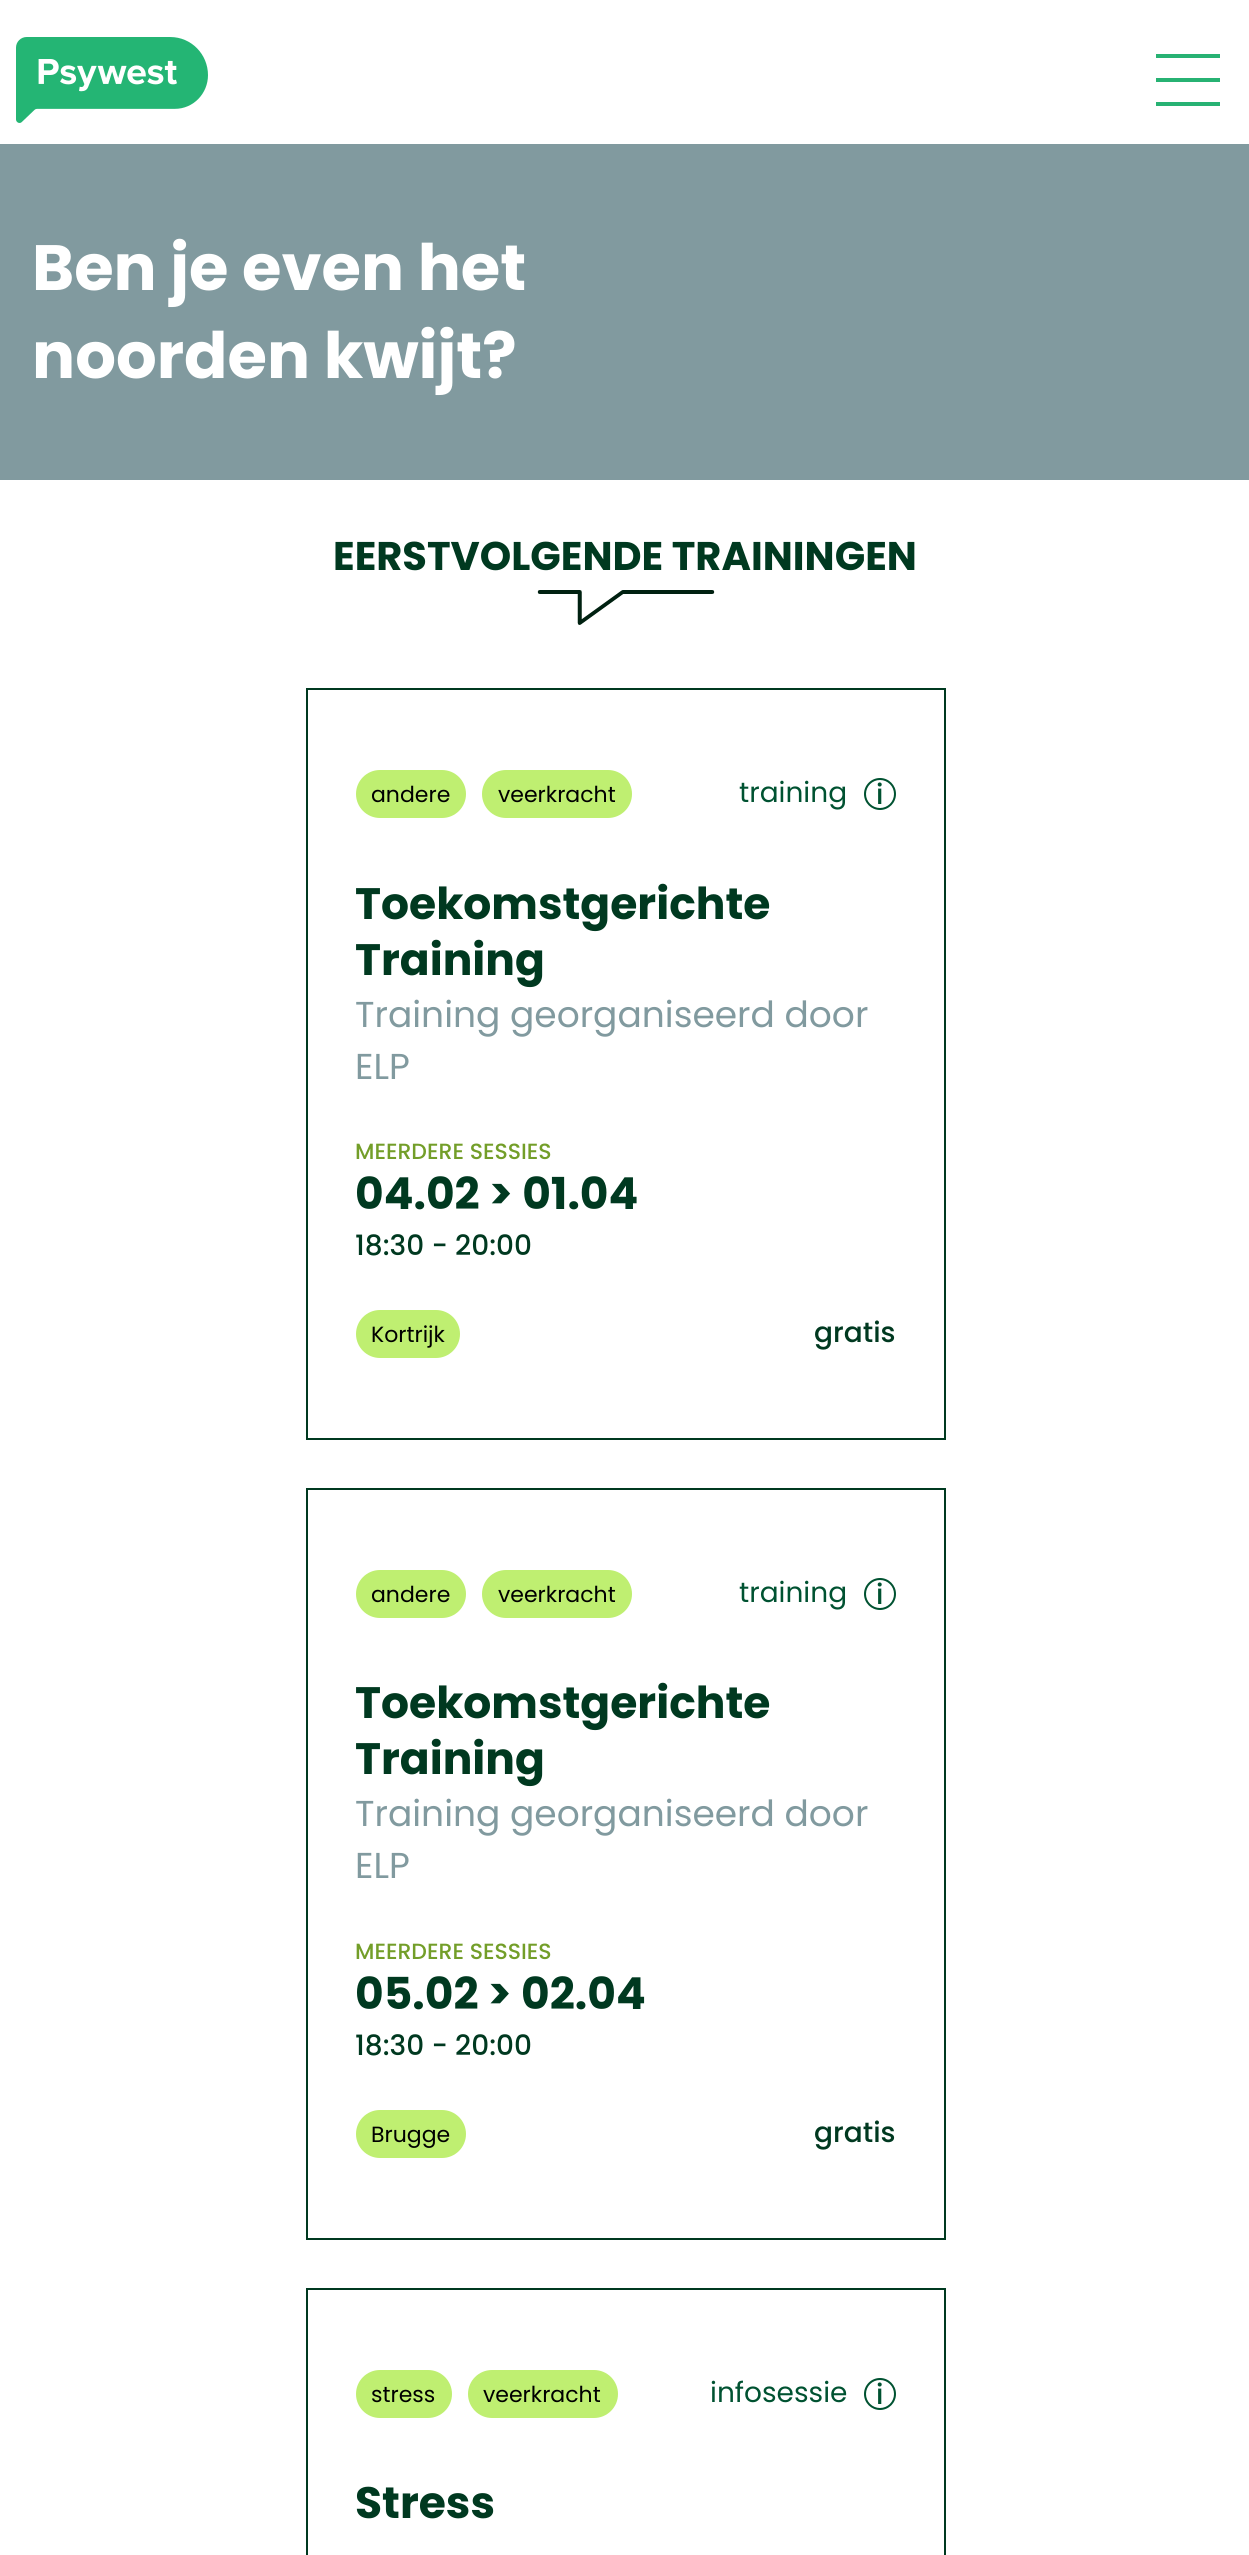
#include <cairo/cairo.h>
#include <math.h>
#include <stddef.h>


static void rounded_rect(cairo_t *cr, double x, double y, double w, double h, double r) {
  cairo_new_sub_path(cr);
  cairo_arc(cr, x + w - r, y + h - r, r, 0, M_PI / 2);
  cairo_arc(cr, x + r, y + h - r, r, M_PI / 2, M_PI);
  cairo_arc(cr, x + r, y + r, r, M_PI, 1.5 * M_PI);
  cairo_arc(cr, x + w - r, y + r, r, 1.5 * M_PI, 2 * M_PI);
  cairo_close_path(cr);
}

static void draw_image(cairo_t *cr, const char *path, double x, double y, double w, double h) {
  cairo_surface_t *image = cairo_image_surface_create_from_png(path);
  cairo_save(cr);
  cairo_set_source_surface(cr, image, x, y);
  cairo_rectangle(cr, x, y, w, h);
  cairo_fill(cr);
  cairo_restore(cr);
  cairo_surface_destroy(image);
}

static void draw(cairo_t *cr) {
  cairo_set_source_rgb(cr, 1, 1, 1);
  cairo_paint(cr);
  draw_image(cr, "images/1.png", 16, 37, 192, 86);
  cairo_set_source_rgb(cr, 39 / 255.0, 178 / 255.0, 115 / 255.0);
  cairo_rectangle(cr, 1156, 78, 64, 4);
  cairo_fill(cr);
  cairo_rectangle(cr, 1156, 54, 64, 4);
  cairo_fill(cr);
  cairo_rectangle(cr, 1156, 102, 64, 4);
  cairo_fill(cr);
  cairo_set_source_rgb(cr, 129 / 255.0, 154 / 255.0, 159 / 255.0);
  cairo_rectangle(cr, 0, 144, 1249, 336);
  cairo_fill(cr);
  draw_image(cr, "images/2.png", 537, 590, 178, 35);
  cairo_rectangle(cr, 307, 689, 638, 750);
  cairo_set_source_rgb(cr, 0, 57 / 255.0, 32 / 255.0);
  cairo_stroke(cr);
  cairo_set_source_rgb(cr, 191 / 255.0, 239 / 255.0, 113 / 255.0);
  rounded_rect(cr, 356, 770, 110, 48, 24);
  cairo_fill(cr);
  rounded_rect(cr, 482, 770, 150, 48, 24);
  cairo_fill(cr);
  draw_image(cr, "images/3.png", 864, 778, 32, 32);
  rounded_rect(cr, 356, 1310, 104, 48, 24);
  cairo_fill(cr);
  cairo_rectangle(cr, 307, 1489, 638, 750);
  cairo_set_source_rgb(cr, 0, 57 / 255.0, 32 / 255.0);
  cairo_stroke(cr);
  cairo_set_source_rgb(cr, 191 / 255.0, 239 / 255.0, 113 / 255.0);
  rounded_rect(cr, 356, 1570, 110, 48, 24);
  cairo_fill(cr);
  rounded_rect(cr, 482, 1570, 150, 48, 24);
  cairo_fill(cr);
  draw_image(cr, "images/3.png", 864, 1578, 32, 32);
  rounded_rect(cr, 356, 2110, 110, 48, 24);
  cairo_fill(cr);
  cairo_rectangle(cr, 307, 2289, 638, 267);
  cairo_set_source_rgb(cr, 0, 57 / 255.0, 32 / 255.0);
  cairo_stroke(cr);
  cairo_set_source_rgb(cr, 191 / 255.0, 239 / 255.0, 113 / 255.0);
  rounded_rect(cr, 356, 2370, 96, 48, 24);
  cairo_fill(cr);
  rounded_rect(cr, 468, 2370, 150, 48, 24);
  cairo_fill(cr);
  draw_image(cr, "images/3.png", 864, 2378, 32, 32);
  cairo_select_font_face(cr, "Poppins", CAIRO_FONT_SLANT_NORMAL, CAIRO_FONT_WEIGHT_BOLD);
  cairo_set_font_size(cr, 64);
  cairo_set_source_rgb(cr, 1, 1, 1);
  cairo_move_to(cr, 32, 290);
  cairo_show_text(cr, "Ben je even het");
  cairo_move_to(cr, 32, 378);
  cairo_show_text(cr, "noorden kwijt?");
  cairo_set_font_size(cr, 40);
  cairo_set_source_rgb(cr, 0, 57 / 255.0, 32 / 255.0);
  cairo_move_to(cr, 333, 570);
  cairo_show_text(cr, "EERSTVOLGENDE TRAININGEN");
  cairo_select_font_face(cr, "Poppins", CAIRO_FONT_SLANT_NORMAL, CAIRO_FONT_WEIGHT_NORMAL);
  cairo_set_font_size(cr, 22);
  cairo_set_source_rgb(cr, 0, 0, 0);
  cairo_move_to(cr, 371, 802);
  cairo_show_text(cr, "andere");
  cairo_move_to(cr, 498, 802);
  cairo_show_text(cr, "veerkracht");
  cairo_set_font_size(cr, 28);
  cairo_set_source_rgb(cr, 0, 82 / 255.0, 49 / 255.0);
  cairo_move_to(cr, 739, 802);
  cairo_show_text(cr, "training");
  cairo_select_font_face(cr, "Poppins", CAIRO_FONT_SLANT_NORMAL, CAIRO_FONT_WEIGHT_BOLD);
  cairo_set_font_size(cr, 44);
  cairo_set_source_rgb(cr, 0, 57 / 255.0, 32 / 255.0);
  cairo_move_to(cr, 355, 919);
  cairo_show_text(cr, "Toekomstgerichte");
  cairo_move_to(cr, 355, 975);
  cairo_show_text(cr, "Training");
  cairo_select_font_face(cr, "Poppins", CAIRO_FONT_SLANT_NORMAL, CAIRO_FONT_WEIGHT_NORMAL);
  cairo_set_font_size(cr, 36);
  cairo_set_source_rgb(cr, 129 / 255.0, 154 / 255.0, 159 / 255.0);
  cairo_move_to(cr, 355, 1027);
  cairo_show_text(cr, "Training georganiseerd door");
  cairo_move_to(cr, 355, 1079);
  cairo_show_text(cr, "ELP");
  cairo_select_font_face(cr, "Poppins Medium", CAIRO_FONT_SLANT_NORMAL, CAIRO_FONT_WEIGHT_NORMAL);
  cairo_set_font_size(cr, 22);
  cairo_set_source_rgb(cr, 115 / 255.0, 158 / 255.0, 41 / 255.0);
  cairo_move_to(cr, 355, 1159);
  cairo_show_text(cr, "MEERDERE SESSIES");
  cairo_select_font_face(cr, "Poppins", CAIRO_FONT_SLANT_NORMAL, CAIRO_FONT_WEIGHT_BOLD);
  cairo_set_font_size(cr, 44);
  cairo_set_source_rgb(cr, 0, 57 / 255.0, 32 / 255.0);
  cairo_move_to(cr, 355, 1209);
  cairo_show_text(cr, "04.02 > 01.04");
  cairo_select_font_face(cr, "Poppins Medium", CAIRO_FONT_SLANT_NORMAL, CAIRO_FONT_WEIGHT_NORMAL);
  cairo_set_font_size(cr, 28);
  cairo_move_to(cr, 355, 1255);
  cairo_show_text(cr, "18:30 - 20:00");
  cairo_select_font_face(cr, "Poppins", CAIRO_FONT_SLANT_NORMAL, CAIRO_FONT_WEIGHT_NORMAL);
  cairo_set_font_size(cr, 22);
  cairo_set_source_rgb(cr, 0, 0, 0);
  cairo_move_to(cr, 371, 1342);
  cairo_show_text(cr, "Kortrijk");
  cairo_select_font_face(cr, "Poppins Medium", CAIRO_FONT_SLANT_NORMAL, CAIRO_FONT_WEIGHT_NORMAL);
  cairo_set_font_size(cr, 28);
  cairo_set_source_rgb(cr, 0, 57 / 255.0, 32 / 255.0);
  cairo_move_to(cr, 814, 1342);
  cairo_show_text(cr, "gratis");
  cairo_select_font_face(cr, "Poppins", CAIRO_FONT_SLANT_NORMAL, CAIRO_FONT_WEIGHT_NORMAL);
  cairo_set_font_size(cr, 22);
  cairo_set_source_rgb(cr, 0, 0, 0);
  cairo_move_to(cr, 371, 1602);
  cairo_show_text(cr, "andere");
  cairo_move_to(cr, 498, 1602);
  cairo_show_text(cr, "veerkracht");
  cairo_set_font_size(cr, 28);
  cairo_set_source_rgb(cr, 0, 82 / 255.0, 49 / 255.0);
  cairo_move_to(cr, 739, 1602);
  cairo_show_text(cr, "training");
  cairo_select_font_face(cr, "Poppins", CAIRO_FONT_SLANT_NORMAL, CAIRO_FONT_WEIGHT_BOLD);
  cairo_set_font_size(cr, 44);
  cairo_set_source_rgb(cr, 0, 57 / 255.0, 32 / 255.0);
  cairo_move_to(cr, 355, 1718);
  cairo_show_text(cr, "Toekomstgerichte");
  cairo_move_to(cr, 355, 1774);
  cairo_show_text(cr, "Training");
  cairo_select_font_face(cr, "Poppins", CAIRO_FONT_SLANT_NORMAL, CAIRO_FONT_WEIGHT_NORMAL);
  cairo_set_font_size(cr, 36);
  cairo_set_source_rgb(cr, 129 / 255.0, 154 / 255.0, 159 / 255.0);
  cairo_move_to(cr, 355, 1826);
  cairo_show_text(cr, "Training georganiseerd door");
  cairo_move_to(cr, 355, 1878);
  cairo_show_text(cr, "ELP");
  cairo_select_font_face(cr, "Poppins Medium", CAIRO_FONT_SLANT_NORMAL, CAIRO_FONT_WEIGHT_NORMAL);
  cairo_set_font_size(cr, 22);
  cairo_set_source_rgb(cr, 115 / 255.0, 158 / 255.0, 41 / 255.0);
  cairo_move_to(cr, 355, 1959);
  cairo_show_text(cr, "MEERDERE SESSIES");
  cairo_select_font_face(cr, "Poppins", CAIRO_FONT_SLANT_NORMAL, CAIRO_FONT_WEIGHT_BOLD);
  cairo_set_font_size(cr, 44);
  cairo_set_source_rgb(cr, 0, 57 / 255.0, 32 / 255.0);
  cairo_move_to(cr, 355, 2009);
  cairo_show_text(cr, "05.02 > 02.04");
  cairo_select_font_face(cr, "Poppins Medium", CAIRO_FONT_SLANT_NORMAL, CAIRO_FONT_WEIGHT_NORMAL);
  cairo_set_font_size(cr, 28);
  cairo_move_to(cr, 355, 2055);
  cairo_show_text(cr, "18:30 - 20:00");
  cairo_select_font_face(cr, "Poppins", CAIRO_FONT_SLANT_NORMAL, CAIRO_FONT_WEIGHT_NORMAL);
  cairo_set_font_size(cr, 22);
  cairo_set_source_rgb(cr, 0, 0, 0);
  cairo_move_to(cr, 371, 2142);
  cairo_show_text(cr, "Brugge");
  cairo_select_font_face(cr, "Poppins Medium", CAIRO_FONT_SLANT_NORMAL, CAIRO_FONT_WEIGHT_NORMAL);
  cairo_set_font_size(cr, 28);
  cairo_set_source_rgb(cr, 0, 57 / 255.0, 32 / 255.0);
  cairo_move_to(cr, 814, 2142);
  cairo_show_text(cr, "gratis");
  cairo_select_font_face(cr, "Poppins", CAIRO_FONT_SLANT_NORMAL, CAIRO_FONT_WEIGHT_NORMAL);
  cairo_set_font_size(cr, 22);
  cairo_set_source_rgb(cr, 0, 0, 0);
  cairo_move_to(cr, 371, 2402);
  cairo_show_text(cr, "stress");
  cairo_move_to(cr, 483, 2402);
  cairo_show_text(cr, "veerkracht");
  cairo_set_font_size(cr, 28);
  cairo_set_source_rgb(cr, 0, 82 / 255.0, 49 / 255.0);
  cairo_move_to(cr, 710, 2402);
  cairo_show_text(cr, "infosessie");
  cairo_select_font_face(cr, "Poppins", CAIRO_FONT_SLANT_NORMAL, CAIRO_FONT_WEIGHT_BOLD);
  cairo_set_font_size(cr, 44);
  cairo_set_source_rgb(cr, 0, 57 / 255.0, 32 / 255.0);
  cairo_move_to(cr, 355, 2518);
  cairo_show_text(cr, "Stress");
}

int main(void) {
  cairo_surface_t *surface = cairo_image_surface_create(CAIRO_FORMAT_RGB24, 1249, 2555);
  cairo_t *cr = cairo_create(surface);
  cairo_font_options_t *options = cairo_font_options_create();
  cairo_font_options_set_hint_metrics(options, CAIRO_HINT_METRICS_OFF);
  cairo_font_options_set_hint_style(options, CAIRO_HINT_STYLE_NONE);
  cairo_set_font_options(cr, options);
  cairo_set_miter_limit(cr, 4);
  draw(cr);
  cairo_surface_write_to_png(surface, "out.png");
  cairo_font_options_destroy(options);
  cairo_destroy(cr);
  cairo_surface_destroy(surface);
  return 0;
}
